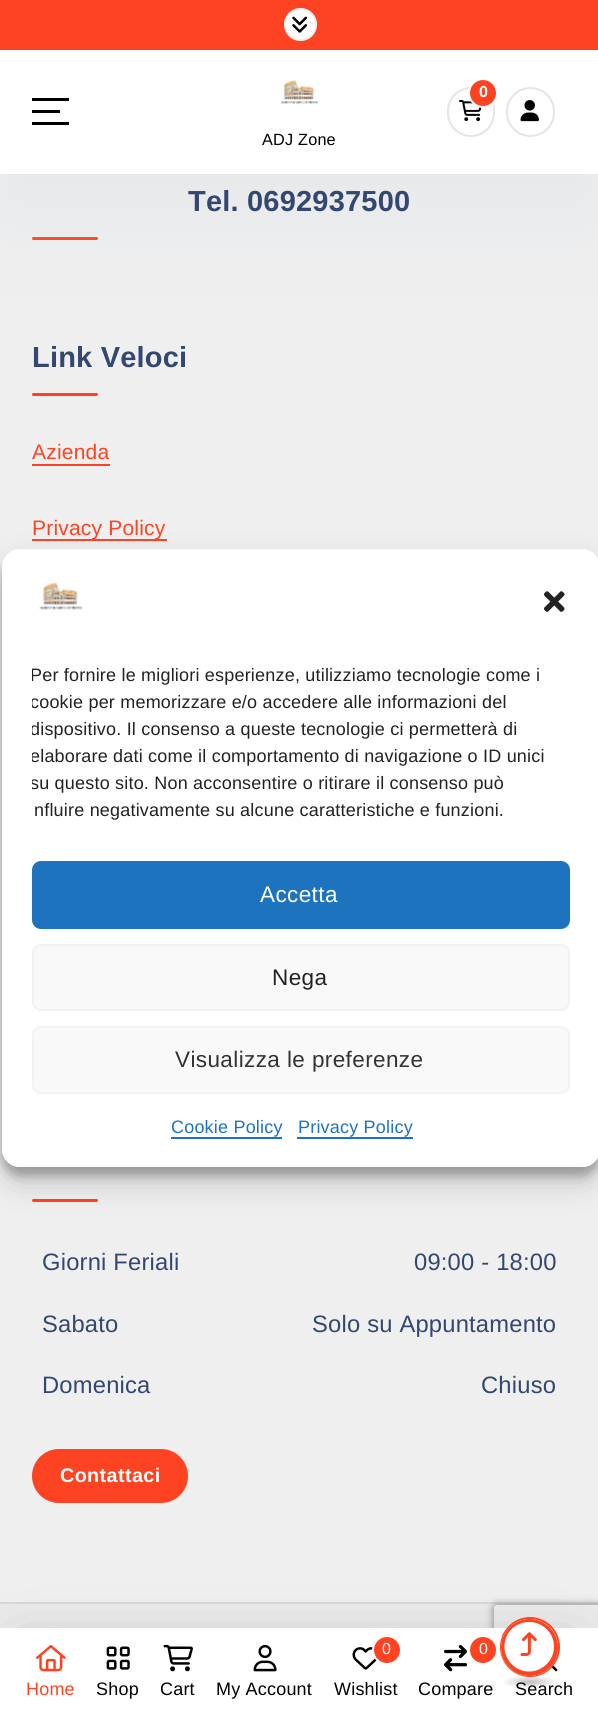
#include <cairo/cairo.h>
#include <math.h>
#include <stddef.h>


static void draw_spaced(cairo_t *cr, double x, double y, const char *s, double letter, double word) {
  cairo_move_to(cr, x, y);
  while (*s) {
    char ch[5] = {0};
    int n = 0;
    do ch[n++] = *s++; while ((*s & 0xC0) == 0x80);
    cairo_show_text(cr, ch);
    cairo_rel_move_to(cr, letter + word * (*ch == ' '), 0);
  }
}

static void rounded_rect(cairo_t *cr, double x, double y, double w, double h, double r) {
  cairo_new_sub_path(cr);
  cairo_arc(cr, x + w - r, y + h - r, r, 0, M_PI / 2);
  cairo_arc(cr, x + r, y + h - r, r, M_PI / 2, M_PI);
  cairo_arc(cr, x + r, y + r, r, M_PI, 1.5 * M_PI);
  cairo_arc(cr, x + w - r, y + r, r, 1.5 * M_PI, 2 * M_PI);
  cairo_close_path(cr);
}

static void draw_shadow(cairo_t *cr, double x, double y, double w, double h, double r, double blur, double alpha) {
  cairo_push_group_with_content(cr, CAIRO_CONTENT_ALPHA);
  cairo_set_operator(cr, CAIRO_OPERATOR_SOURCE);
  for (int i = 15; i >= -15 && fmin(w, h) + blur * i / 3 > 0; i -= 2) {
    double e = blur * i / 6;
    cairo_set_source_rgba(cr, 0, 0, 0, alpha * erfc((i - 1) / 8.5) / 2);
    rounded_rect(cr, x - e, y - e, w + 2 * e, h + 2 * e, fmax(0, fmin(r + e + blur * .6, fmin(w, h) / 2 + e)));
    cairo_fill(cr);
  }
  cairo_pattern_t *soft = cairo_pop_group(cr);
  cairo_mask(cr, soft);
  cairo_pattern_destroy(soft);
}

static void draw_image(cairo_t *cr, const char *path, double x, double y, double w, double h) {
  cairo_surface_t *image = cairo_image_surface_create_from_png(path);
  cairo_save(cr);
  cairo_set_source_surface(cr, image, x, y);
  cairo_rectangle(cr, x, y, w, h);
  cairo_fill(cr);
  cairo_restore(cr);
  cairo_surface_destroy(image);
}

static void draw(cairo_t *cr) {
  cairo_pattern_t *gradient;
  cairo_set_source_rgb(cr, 239 / 255.0, 239 / 255.0, 239 / 255.0);
  cairo_paint(cr);
  cairo_set_source_rgb(cr, 254 / 255.0, 67 / 255.0, 34 / 255.0);
  rounded_rect(cr, 32, 237, 66, 3, 1.5);
  cairo_fill(cr);
  cairo_set_source_rgb(cr, 199 / 255.0, 206 / 255.0, 218 / 255.0);
  draw_shadow(cr, 0, 36, 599, 174, 0, 48, 0.25);
  cairo_set_source_rgb(cr, 1, 1, 1);
  cairo_rectangle(cr, 0, 50, 598, 124);
  cairo_fill(cr);
  cairo_set_source_rgb(cr, 254 / 255.0, 67 / 255.0, 34 / 255.0);
  cairo_rectangle(cr, 0, 0, 598, 50);
  cairo_fill(cr);
  cairo_set_source_rgb(cr, 1, 1, 1);
  cairo_arc(cr, 300.5, 24.5, 16.5, 0, 2 * M_PI);
  cairo_fill(cr);
  cairo_arc(cr, 300.5, 24.5, 15.5, 0, 2 * M_PI);
  cairo_set_source_rgba(cr, 189 / 255.0, 189 / 255.0, 189 / 255.0, 0.2);
  cairo_stroke(cr);
  draw_image(cr, "images/1.png", 292, 16, 16, 17);
  draw_image(cr, "images/2.png", 459, 100, 23, 22);
  rounded_rect(cr, 448, 88, 46, 48, 23);
  cairo_set_source_rgb(cr, 229 / 255.0, 229 / 255.0, 229 / 255.0);
  cairo_stroke(cr);
  cairo_set_source_rgb(cr, 254 / 255.0, 67 / 255.0, 34 / 255.0);
  cairo_arc(cr, 483, 93, 14, 0, 2 * M_PI);
  cairo_fill_preserve(cr);
  cairo_set_source_rgb(cr, 1, 1, 1);
  cairo_stroke(cr);
  draw_image(cr, "images/3.png", 520, 100, 19, 22);
  rounded_rect(cr, 507, 88, 47, 48, 23.5);
  cairo_set_source_rgb(cr, 229 / 255.0, 229 / 255.0, 229 / 255.0);
  cairo_stroke(cr);
  cairo_set_source_rgb(cr, 0, 0, 0);
  cairo_rectangle(cr, 32, 98, 37, 3);
  cairo_fill(cr);
  cairo_rectangle(cr, 32, 110, 28, 3);
  cairo_fill(cr);
  cairo_rectangle(cr, 32, 122, 37, 3);
  cairo_fill(cr);
  draw_image(cr, "images/4.png", 280, 80, 39, 25);
  cairo_set_source_rgb(cr, 254 / 255.0, 67 / 255.0, 34 / 255.0);
  rounded_rect(cr, 32, 393, 66, 3, 1.5);
  cairo_fill(cr);
  cairo_rectangle(cr, 32, 464, 78, 2);
  cairo_fill(cr);
  cairo_rectangle(cr, 32, 539, 135, 2);
  cairo_fill(cr);
  rounded_rect(cr, 32, 1199, 66, 3, 1.5);
  cairo_fill(cr);
  rounded_rect(cr, 33, 1450, 154, 52, 26);
  cairo_fill_preserve(cr);
  cairo_stroke(cr);
  cairo_set_source_rgb(cr, 234 / 255.0, 234 / 255.0, 234 / 255.0);
  cairo_rectangle(cr, 0, 1604, 598, 24);
  cairo_fill(cr);
  cairo_set_source_rgb(cr, 216 / 255.0, 216 / 255.0, 216 / 255.0);
  cairo_rectangle(cr, 0, 1602, 598, 2);
  cairo_fill(cr);
  cairo_save(cr);
  cairo_set_fill_rule(cr, CAIRO_FILL_RULE_EVEN_ODD);
  cairo_new_path(cr);
  cairo_move_to(cr, 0, 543);
  cairo_line_to(cr, 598, 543);
  cairo_line_to(cr, 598, 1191);
  cairo_line_to(cr, 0, 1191);
  cairo_close_path(cr);
  cairo_move_to(cr, 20, 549);
  cairo_line_to(cr, 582, 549);
  cairo_curve_to(cr, 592, 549, 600, 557, 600, 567);
  cairo_line_to(cr, 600, 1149);
  cairo_curve_to(cr, 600, 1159, 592, 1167, 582, 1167);
  cairo_line_to(cr, 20, 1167);
  cairo_curve_to(cr, 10, 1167, 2, 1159, 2, 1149);
  cairo_line_to(cr, 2, 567);
  cairo_curve_to(cr, 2, 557, 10, 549, 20, 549);
  cairo_close_path(cr);
  cairo_clip(cr);
  cairo_set_source_rgb(cr, 0, 0, 0);
  draw_shadow(cr, 2, 558, 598, 618, 18, 4.5, 0.23);
  cairo_restore(cr);
  cairo_save(cr);
  cairo_set_fill_rule(cr, CAIRO_FILL_RULE_EVEN_ODD);
  cairo_new_path(cr);
  cairo_move_to(cr, 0, 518);
  cairo_line_to(cr, 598, 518);
  cairo_line_to(cr, 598, 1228);
  cairo_line_to(cr, 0, 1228);
  cairo_close_path(cr);
  cairo_move_to(cr, 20, 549);
  cairo_line_to(cr, 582, 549);
  cairo_curve_to(cr, 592, 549, 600, 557, 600, 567);
  cairo_line_to(cr, 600, 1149);
  cairo_curve_to(cr, 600, 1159, 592, 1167, 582, 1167);
  cairo_line_to(cr, 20, 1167);
  cairo_curve_to(cr, 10, 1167, 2, 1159, 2, 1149);
  cairo_line_to(cr, 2, 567);
  cairo_curve_to(cr, 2, 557, 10, 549, 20, 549);
  cairo_close_path(cr);
  cairo_clip(cr);
  cairo_set_source_rgb(cr, 0, 0, 0);
  draw_shadow(cr, 2, 564, 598, 618, 18, 15, 0.19);
  cairo_restore(cr);
  cairo_set_source_rgb(cr, 1, 1, 1);
  rounded_rect(cr, 2, 549, 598, 618, 18);
  cairo_fill(cr);
  draw_image(cr, "images/5.png", 39, 582, 44, 28);
  draw_image(cr, "images/6.png", 544, 591, 21, 21);
  cairo_set_source_rgb(cr, 30 / 255.0, 115 / 255.0, 190 / 255.0);
  rounded_rect(cr, 33, 862, 536, 66, 8);
  cairo_fill_preserve(cr);
  cairo_stroke(cr);
  cairo_set_source_rgb(cr, 249 / 255.0, 249 / 255.0, 249 / 255.0);
  rounded_rect(cr, 33, 945, 536, 65, 8);
  cairo_fill_preserve(cr);
  cairo_set_source_rgb(cr, 242 / 255.0, 242 / 255.0, 242 / 255.0);
  cairo_stroke(cr);
  cairo_set_source_rgb(cr, 249 / 255.0, 249 / 255.0, 249 / 255.0);
  rounded_rect(cr, 33, 1027, 536, 66, 8);
  cairo_fill_preserve(cr);
  cairo_set_source_rgb(cr, 242 / 255.0, 242 / 255.0, 242 / 255.0);
  cairo_stroke(cr);
  cairo_set_source_rgb(cr, 30 / 255.0, 115 / 255.0, 190 / 255.0);
  cairo_rectangle(cr, 171, 1137, 111, 2);
  cairo_fill(cr);
  cairo_rectangle(cr, 297, 1137, 116, 2);
  cairo_fill(cr);
  cairo_save(cr);
  cairo_set_fill_rule(cr, CAIRO_FILL_RULE_EVEN_ODD);
  cairo_new_path(cr);
  cairo_move_to(cr, 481, 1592);
  cairo_line_to(cr, 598, 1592);
  cairo_line_to(cr, 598, 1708);
  cairo_line_to(cr, 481, 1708);
  cairo_close_path(cr);
  cairo_move_to(cr, 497, 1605);
  cairo_line_to(cr, 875, 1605);
  cairo_curve_to(cr, 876.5, 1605, 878, 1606.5, 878, 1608);
  cairo_line_to(cr, 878, 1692);
  cairo_curve_to(cr, 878, 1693.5, 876.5, 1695, 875, 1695);
  cairo_line_to(cr, 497, 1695);
  cairo_curve_to(cr, 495.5, 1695, 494, 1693.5, 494, 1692);
  cairo_line_to(cr, 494, 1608);
  cairo_curve_to(cr, 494, 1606.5, 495.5, 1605, 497, 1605);
  cairo_close_path(cr);
  cairo_clip(cr);
  cairo_set_source_rgb(cr, 128 / 255.0, 128 / 255.0, 128 / 255.0);
  draw_shadow(cr, 494, 1605, 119, 90, 3, 4, 1);
  cairo_restore(cr);
  cairo_set_source_rgb(cr, 0, 0, 0);
  draw_shadow(cr, 27, 1661, 539, 28, 0, 34, 0.3);
  cairo_set_source_rgb(cr, 1, 1, 1);
  cairo_rectangle(cr, 0, 1628, 598, 87);
  cairo_fill(cr);
  draw_image(cr, "images/14.png", 550, 1664, 8, 8);
  cairo_arc(cr, 530, 1647, 29, 0, 2 * M_PI);
  cairo_set_source_rgb(cr, 254 / 255.0, 67 / 255.0, 34 / 255.0);
  cairo_stroke(cr);
  cairo_set_source_rgb(cr, 1, 1, 1);
  cairo_arc(cr, 529.5, 1647.5, 28.5, 0, 2 * M_PI);
  cairo_fill(cr);
  cairo_save(cr);
  rounded_rect(cr, 501, 1619, 57, 57, 28.5);
  cairo_clip(cr);
  cairo_new_path(cr);
  cairo_move_to(cr, 529, 1619.5);
  cairo_curve_to(cr, 544, 1619.5, 556.5, 1631.5, 556.5, 1646.5);
  cairo_curve_to(cr, 556.5, 1661.5, 544, 1674, 529, 1674);
  cairo_curve_to(cr, 514, 1674, 502, 1661.5, 502, 1646.5);
  cairo_curve_to(cr, 502, 1631.5, 514, 1619.5, 529, 1619.5);
  cairo_set_source_rgb(cr, 254 / 255.0, 67 / 255.0, 34 / 255.0);
  cairo_set_line_width(cr, 4.9);
  cairo_stroke(cr);
  cairo_restore(cr);
  draw_image(cr, "images/7.png", 520, 1632, 17, 24);
  gradient = cairo_pattern_create_radial(0, 0, 0, 0, 0, 1);
  cairo_pattern_set_matrix(gradient, &(cairo_matrix_t){1.0 / 36, 0, 0, 1.0 / 8, -1.0 * 530 / 36, -1.0 * 1682 / 8});
  cairo_pattern_add_color_stop_rgba(gradient, 0, 0, 0, 0, 0.25);
  cairo_pattern_add_color_stop_rgba(gradient, 0.8, 0, 0, 0, 0);
  cairo_set_source(cr, gradient);
  cairo_pattern_destroy(gradient);
  cairo_rectangle(cr, 504, 1676, 51, 12);
  cairo_fill(cr);
  draw_image(cr, "images/8.png", 36, 1645, 30, 27);
  draw_image(cr, "images/9.png", 106, 1646, 24, 24);
  draw_image(cr, "images/10.png", 163, 1644, 30, 28);
  draw_image(cr, "images/11.png", 253, 1644, 24, 28);
  draw_image(cr, "images/12.png", 352, 1647, 25, 23);
  cairo_set_source_rgb(cr, 254 / 255.0, 67 / 255.0, 34 / 255.0);
  cairo_arc(cr, 387, 1650, 14, 0, 2 * M_PI);
  cairo_fill_preserve(cr);
  cairo_set_source_rgb(cr, 1, 1, 1);
  cairo_stroke(cr);
  draw_image(cr, "images/13.png", 444, 1644, 24, 28);
  cairo_set_source_rgb(cr, 254 / 255.0, 67 / 255.0, 34 / 255.0);
  cairo_arc(cr, 483, 1650, 14, 0, 2 * M_PI);
  cairo_fill_preserve(cr);
  cairo_set_source_rgb(cr, 1, 1, 1);
  cairo_stroke(cr);
  cairo_select_font_face(cr, "Liberation Sans", CAIRO_FONT_SLANT_NORMAL, CAIRO_FONT_WEIGHT_BOLD);
  cairo_set_font_size(cr, 16);
  draw_spaced(cr, 479, 97, "0", 0.2, 0);
  cairo_select_font_face(cr, "Liberation Sans", CAIRO_FONT_SLANT_NORMAL, CAIRO_FONT_WEIGHT_NORMAL);
  cairo_set_font_size(cr, 16.25);
  cairo_set_source_rgb(cr, 0, 0, 0);
  draw_spaced(cr, 262, 145, "ADJ Zone", 0.2, 0);
  cairo_select_font_face(cr, "Liberation Sans", CAIRO_FONT_SLANT_NORMAL, CAIRO_FONT_WEIGHT_BOLD);
  cairo_set_font_size(cr, 29);
  cairo_set_source_rgb(cr, 51 / 255.0, 71 / 255.0, 112 / 255.0);
  draw_spaced(cr, 188, 211, "Tel. 0692937500", 0.2, 0);
  draw_spaced(cr, 32, 367, "Link Veloci", 0.2, 0);
  cairo_select_font_face(cr, "Liberation Sans", CAIRO_FONT_SLANT_NORMAL, CAIRO_FONT_WEIGHT_NORMAL);
  cairo_set_font_size(cr, 21);
  cairo_set_source_rgb(cr, 254 / 255.0, 67 / 255.0, 34 / 255.0);
  draw_spaced(cr, 32, 459, "Azienda", 0.2, 0);
  draw_spaced(cr, 32, 535, "Privacy Policy", 0.2, 0);
  cairo_set_font_size(cr, 23.75);
  cairo_set_source_rgb(cr, 51 / 255.0, 71 / 255.0, 112 / 255.0);
  draw_spaced(cr, 42, 1270, "Giorni Feriali", 0.2, 0);
  draw_spaced(cr, 414, 1270, "09:00 - 18:00", 0.2, 0);
  draw_spaced(cr, 42, 1332, "Sabato", 0.2, 0);
  draw_spaced(cr, 312, 1332, "Solo su Appuntamento", 0.2, 0);
  draw_spaced(cr, 42, 1393, "Domenica", 0.2, 0);
  draw_spaced(cr, 481, 1393, "Chiuso", 0.2, 0);
  cairo_select_font_face(cr, "Liberation Sans", CAIRO_FONT_SLANT_NORMAL, CAIRO_FONT_WEIGHT_BOLD);
  cairo_set_font_size(cr, 19.75);
  cairo_set_source_rgb(cr, 1, 1, 1);
  draw_spaced(cr, 60, 1482, "Contattaci", 0.4, 0);
  cairo_save(cr);
  cairo_rectangle(cr, 32, 662, 538, 169);
  cairo_clip(cr);
  cairo_select_font_face(cr, "Liberation Sans", CAIRO_FONT_SLANT_NORMAL, CAIRO_FONT_WEIGHT_NORMAL);
  cairo_set_font_size(cr, 18);
  cairo_set_source_rgb(cr, 34 / 255.0, 34 / 255.0, 34 / 255.0);
  draw_spaced(cr, 30, 681, "Per fornire le migliori esperienze, utilizziamo tecnologie come i", 0.2, 0);
  draw_spaced(cr, 30, 708, "cookie per memorizzare e/o accedere alle informazioni del", 0.2, 0);
  draw_spaced(cr, 30, 735, "dispositivo. Il consenso a queste tecnologie ci permetterà di", 0.2, 0);
  draw_spaced(cr, 30, 762, "elaborare dati come il comportamento di navigazione o ID unici", 0.2, 0);
  draw_spaced(cr, 30, 789, "su questo sito. Non acconsentire o ritirare il consenso può", 0.2, 0);
  cairo_restore(cr);
  cairo_select_font_face(cr, "Liberation Sans", CAIRO_FONT_SLANT_NORMAL, CAIRO_FONT_WEIGHT_NORMAL);
  cairo_set_font_size(cr, 18);
  cairo_set_source_rgb(cr, 34 / 255.0, 34 / 255.0, 34 / 255.0);
  draw_spaced(cr, 34, 816, "nfluire negativamente su alcune caratteristiche e funzioni.", 0.2, 0);
  cairo_set_font_size(cr, 22.5);
  cairo_set_source_rgb(cr, 1, 1, 1);
  draw_spaced(cr, 260, 902, "Accetta", 0.4, 0);
  cairo_set_source_rgb(cr, 34 / 255.0, 34 / 255.0, 34 / 255.0);
  draw_spaced(cr, 272, 985, "Nega", 0.4, 0);
  cairo_set_source_rgb(cr, 51 / 255.0, 51 / 255.0, 51 / 255.0);
  draw_spaced(cr, 175, 1067, "Visualizza le preferenze", 0.4, 0);
  cairo_set_font_size(cr, 18);
  cairo_set_source_rgb(cr, 30 / 255.0, 115 / 255.0, 190 / 255.0);
  draw_spaced(cr, 171, 1133, "Cookie Policy", 0.2, 0);
  draw_spaced(cr, 298, 1133, "Privacy Policy", 0.2, 0);
  cairo_set_source_rgb(cr, 254 / 255.0, 67 / 255.0, 34 / 255.0);
  draw_spaced(cr, 26, 1695, "Home", 0.2, 0);
  cairo_set_source_rgb(cr, 0, 0, 0);
  draw_spaced(cr, 96, 1695, "Shop", 0.2, 0);
  draw_spaced(cr, 160, 1695, "Cart", 0.2, 0);
  draw_spaced(cr, 216, 1695, "My Account", 0.2, 0);
  cairo_set_font_size(cr, 16);
  cairo_set_source_rgb(cr, 1, 1, 1);
  draw_spaced(cr, 382, 1654, "0", 0.2, 0);
  cairo_set_font_size(cr, 18);
  cairo_set_source_rgb(cr, 0, 0, 0);
  draw_spaced(cr, 334, 1695, "Wishlist", 0.2, 0);
  cairo_set_font_size(cr, 16);
  cairo_set_source_rgb(cr, 1, 1, 1);
  draw_spaced(cr, 479, 1654, "0", 0.2, 0);
  cairo_set_font_size(cr, 18);
  cairo_set_source_rgb(cr, 0, 0, 0);
  draw_spaced(cr, 418, 1695, "Compare", 0.2, 0);
  draw_spaced(cr, 515, 1695, "Search", 0.2, 0);
}

int main(void) {
  cairo_surface_t *surface = cairo_image_surface_create(CAIRO_FORMAT_RGB24, 598, 1715);
  cairo_t *cr = cairo_create(surface);
  cairo_font_options_t *options = cairo_font_options_create();
  cairo_font_options_set_hint_metrics(options, CAIRO_HINT_METRICS_OFF);
  cairo_font_options_set_hint_style(options, CAIRO_HINT_STYLE_NONE);
  cairo_set_font_options(cr, options);
  cairo_set_miter_limit(cr, 4);
  draw(cr);
  cairo_surface_write_to_png(surface, "out.png");
  cairo_font_options_destroy(options);
  cairo_destroy(cr);
  cairo_surface_destroy(surface);
  return 0;
}
